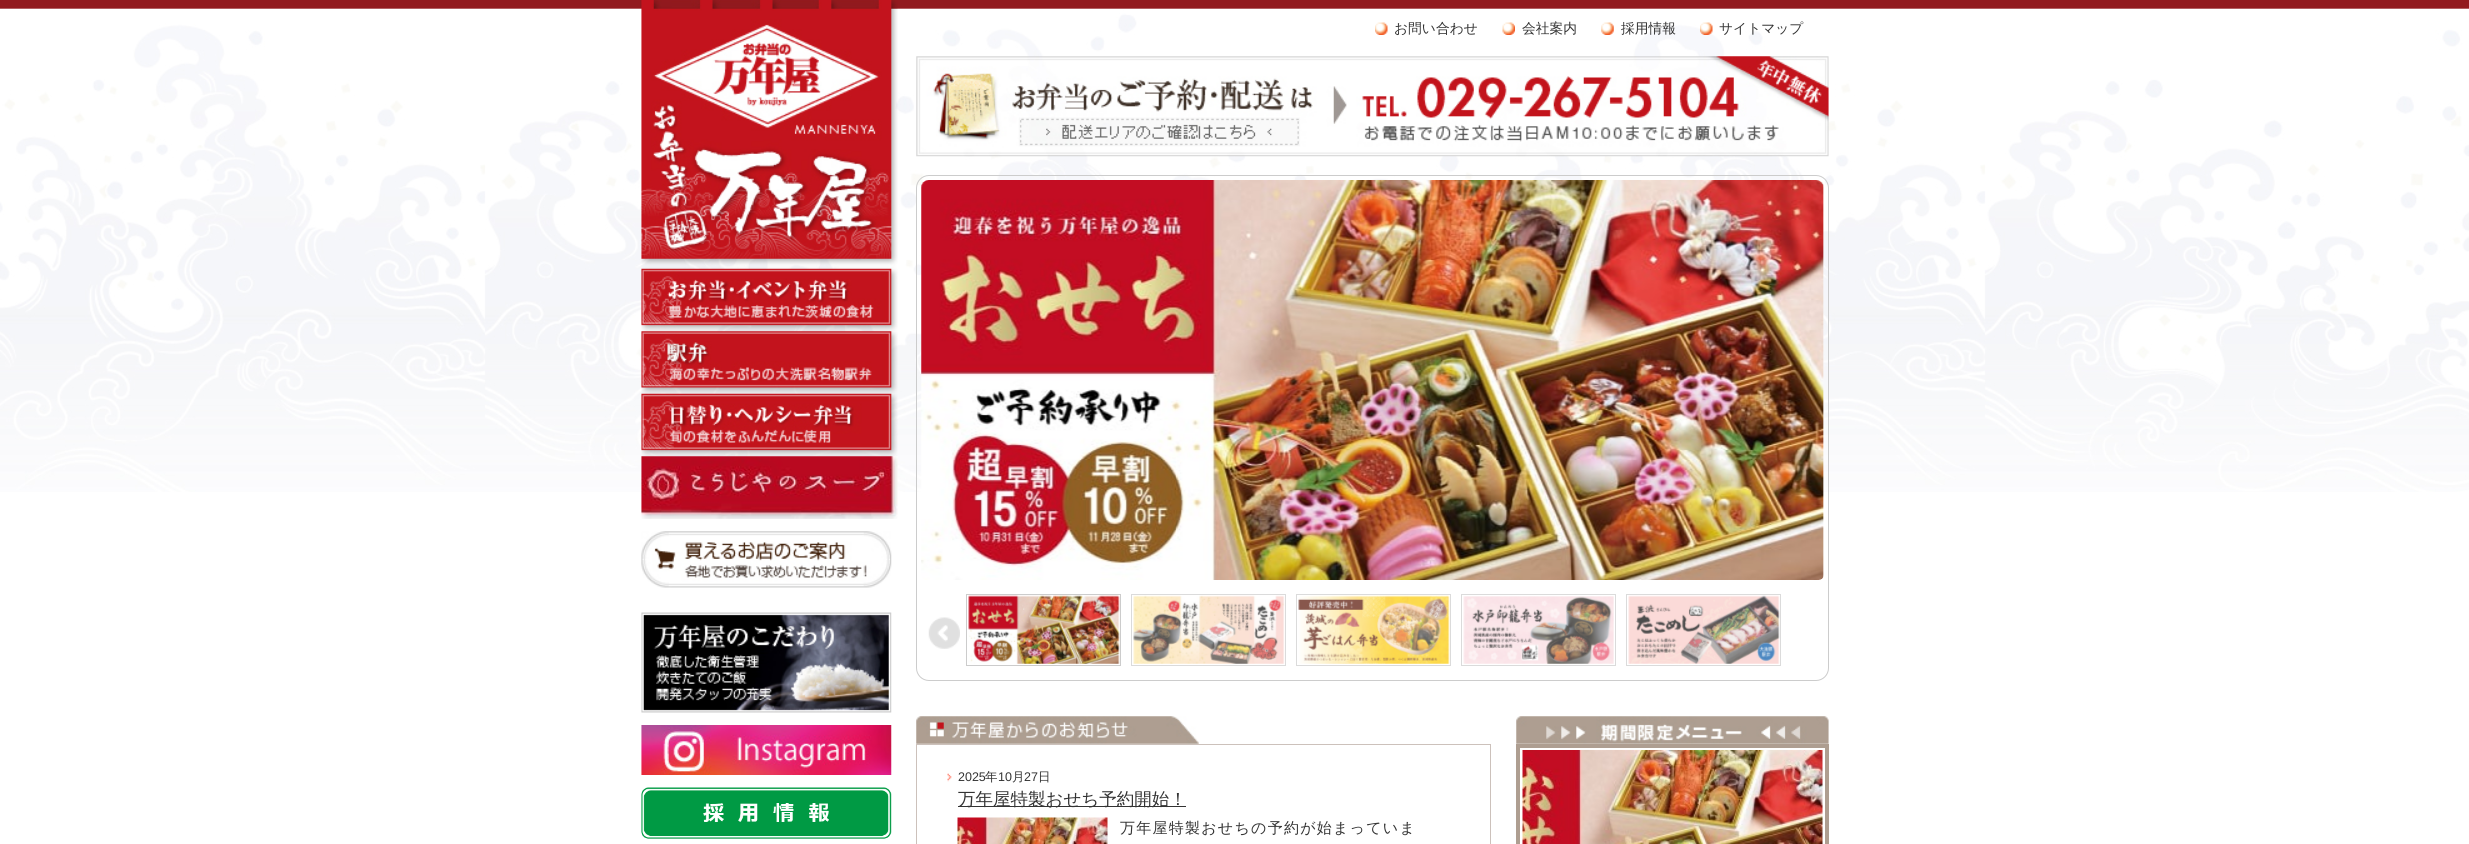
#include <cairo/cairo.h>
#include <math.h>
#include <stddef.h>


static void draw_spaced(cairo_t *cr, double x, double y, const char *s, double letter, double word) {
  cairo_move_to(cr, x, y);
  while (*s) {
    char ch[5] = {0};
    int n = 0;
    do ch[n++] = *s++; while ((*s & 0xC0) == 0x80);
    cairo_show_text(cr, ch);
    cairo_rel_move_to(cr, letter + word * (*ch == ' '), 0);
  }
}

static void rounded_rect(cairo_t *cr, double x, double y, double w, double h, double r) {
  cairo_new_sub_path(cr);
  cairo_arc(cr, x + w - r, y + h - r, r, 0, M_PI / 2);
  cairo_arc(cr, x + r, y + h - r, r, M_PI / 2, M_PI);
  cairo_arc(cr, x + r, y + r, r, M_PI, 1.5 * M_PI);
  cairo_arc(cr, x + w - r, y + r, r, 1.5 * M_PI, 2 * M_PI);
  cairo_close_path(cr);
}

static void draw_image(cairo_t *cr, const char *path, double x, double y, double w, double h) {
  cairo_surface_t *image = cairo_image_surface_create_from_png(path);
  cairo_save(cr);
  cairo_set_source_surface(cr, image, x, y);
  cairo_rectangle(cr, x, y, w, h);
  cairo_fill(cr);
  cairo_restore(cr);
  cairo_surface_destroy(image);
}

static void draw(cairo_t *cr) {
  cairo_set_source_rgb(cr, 1, 1, 1);
  cairo_paint(cr);
  draw_image(cr, "images/1.png", 0, 0, 2469, 492);
  draw_image(cr, "images/2.png", 641, 0, 257, 269);
  draw_image(cr, "images/3.png", 641, 268, 257, 64);
  draw_image(cr, "images/4.png", 641, 331, 257, 63);
  draw_image(cr, "images/5.png", 641, 393, 257, 64);
  draw_image(cr, "images/6.png", 641, 456, 257, 63);
  draw_image(cr, "images/7.png", 641, 531, 251, 57);
  draw_image(cr, "images/8.png", 641, 612, 251, 101);
  draw_image(cr, "images/9.png", 641, 725, 251, 50);
  draw_image(cr, "images/10.png", 641, 787, 251, 52);
  draw_image(cr, "images/11.png", 1375, 22, 13, 13);
  draw_image(cr, "images/12.png", 1502, 22, 13, 13);
  draw_image(cr, "images/13.png", 1601, 22, 13, 13);
  draw_image(cr, "images/14.png", 1700, 22, 13, 13);
  draw_image(cr, "images/15.png", 916, 56, 913, 101);
  rounded_rect(cr, 916.5, 175.5, 912, 505, 12.5);
  cairo_set_source_rgb(cr, 204 / 255.0, 204 / 255.0, 204 / 255.0);
  cairo_set_line_width(cr, 1);
  cairo_stroke(cr);
  draw_image(cr, "images/16.png", 921, 180, 903, 400);
  draw_image(cr, "images/17.png", 928, 617, 32, 32);
  cairo_rectangle(cr, 966.5, 594.5, 154, 71);
  cairo_stroke(cr);
  draw_image(cr, "images/18.png", 968, 595, 152, 69);
  cairo_rectangle(cr, 1131.5, 594.5, 154, 71);
  cairo_set_source_rgb(cr, 219 / 255.0, 219 / 255.0, 219 / 255.0);
  cairo_stroke(cr);
  draw_image(cr, "images/19.png", 1133, 595, 152, 69);
  cairo_rectangle(cr, 1296.5, 594.5, 154, 71);
  cairo_stroke(cr);
  draw_image(cr, "images/20.png", 1298, 595, 152, 69);
  cairo_rectangle(cr, 1461.5, 594.5, 154, 71);
  cairo_stroke(cr);
  draw_image(cr, "images/21.png", 1463, 596, 151, 68);
  cairo_rectangle(cr, 1626.5, 594.5, 154, 71);
  cairo_stroke(cr);
  draw_image(cr, "images/22.png", 1628, 595, 152, 69);
  draw_image(cr, "images/23.png", 916, 716, 283, 28);
  cairo_rectangle(cr, 916.5, 744.5, 574, 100);
  cairo_set_source_rgb(cr, 204 / 255.0, 193 / 255.0, 187 / 255.0);
  cairo_stroke(cr);
  draw_image(cr, "images/24.png", 947, 773, 5, 9);
  cairo_set_source_rgb(cr, 51 / 255.0, 51 / 255.0, 51 / 255.0);
  cairo_rectangle(cr, 958, 806, 228, 1);
  cairo_fill(cr);
  draw_image(cr, "images/25.png", 957, 817, 151, 27);
  draw_image(cr, "images/26.png", 1516, 716, 313, 28);
  cairo_rectangle(cr, 1518, 746, 309, 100);
  cairo_set_source_rgb(cr, 174 / 255.0, 158 / 255.0, 145 / 255.0);
  cairo_set_line_width(cr, 4);
  cairo_stroke(cr);
  draw_image(cr, "images/27.png", 1522, 750, 301, 94);
  cairo_select_font_face(cr, "WenQuanYi Zen Hei Medium", CAIRO_FONT_SLANT_NORMAL, CAIRO_FONT_WEIGHT_NORMAL);
  cairo_set_font_size(cr, 13.75);
  cairo_set_source_rgb(cr, 51 / 255.0, 51 / 255.0, 51 / 255.0);
  cairo_move_to(cr, 1394, 33);
  cairo_show_text(cr, "お問い合わせ");
  cairo_move_to(cr, 1522, 33);
  cairo_show_text(cr, "会社案内");
  cairo_move_to(cr, 1621, 33);
  cairo_show_text(cr, "採用情報");
  cairo_move_to(cr, 1719, 33);
  cairo_show_text(cr, "サイトマップ");
  cairo_select_font_face(cr, "Liberation Sans", CAIRO_FONT_SLANT_NORMAL, CAIRO_FONT_WEIGHT_NORMAL);
  cairo_set_font_size(cr, 12.5);
  cairo_move_to(cr, 958, 781);
  cairo_show_text(cr, "2025");
  cairo_select_font_face(cr, "WenQuanYi Zen Hei Medium", CAIRO_FONT_SLANT_NORMAL, CAIRO_FONT_WEIGHT_NORMAL);
  cairo_move_to(cr, 985, 781);
  cairo_show_text(cr, "年");
  cairo_select_font_face(cr, "Liberation Sans", CAIRO_FONT_SLANT_NORMAL, CAIRO_FONT_WEIGHT_NORMAL);
  cairo_move_to(cr, 998, 781);
  cairo_show_text(cr, "10");
  cairo_select_font_face(cr, "WenQuanYi Zen Hei Medium", CAIRO_FONT_SLANT_NORMAL, CAIRO_FONT_WEIGHT_NORMAL);
  cairo_move_to(cr, 1012, 781);
  cairo_show_text(cr, "月");
  cairo_select_font_face(cr, "Liberation Sans", CAIRO_FONT_SLANT_NORMAL, CAIRO_FONT_WEIGHT_NORMAL);
  cairo_move_to(cr, 1024, 781);
  cairo_show_text(cr, "27");
  cairo_select_font_face(cr, "WenQuanYi Zen Hei Medium", CAIRO_FONT_SLANT_NORMAL, CAIRO_FONT_WEIGHT_NORMAL);
  cairo_move_to(cr, 1038, 781);
  cairo_show_text(cr, "日");
  cairo_set_font_size(cr, 17.5);
  cairo_move_to(cr, 958, 805);
  cairo_show_text(cr, "万年屋特製おせち予約開始！");
  cairo_set_font_size(cr, 15);
  draw_spaced(cr, 1120, 833, "万年屋特製おせちの予約が始まっていま", 1.25, 0);
}

int main(void) {
  cairo_surface_t *surface = cairo_image_surface_create(CAIRO_FORMAT_RGB24, 2469, 844);
  cairo_t *cr = cairo_create(surface);
  cairo_font_options_t *options = cairo_font_options_create();
  cairo_font_options_set_hint_metrics(options, CAIRO_HINT_METRICS_OFF);
  cairo_font_options_set_hint_style(options, CAIRO_HINT_STYLE_NONE);
  cairo_set_font_options(cr, options);
  cairo_set_miter_limit(cr, 4);
  draw(cr);
  cairo_surface_write_to_png(surface, "out.png");
  cairo_font_options_destroy(options);
  cairo_destroy(cr);
  cairo_surface_destroy(surface);
  return 0;
}
